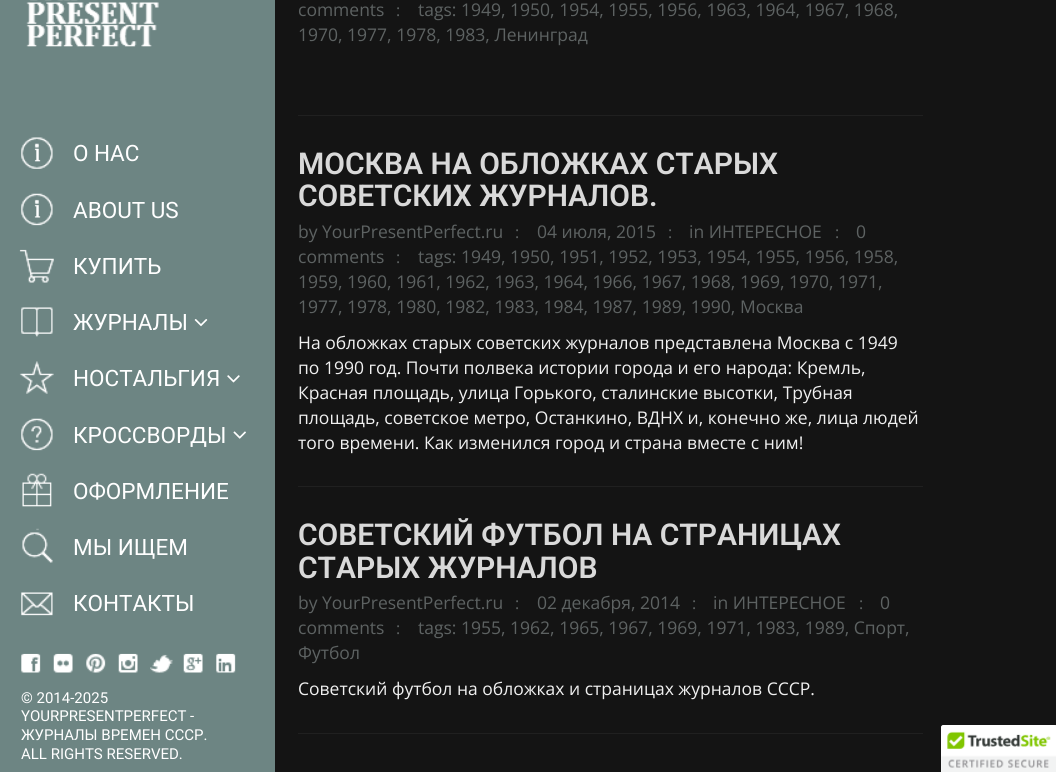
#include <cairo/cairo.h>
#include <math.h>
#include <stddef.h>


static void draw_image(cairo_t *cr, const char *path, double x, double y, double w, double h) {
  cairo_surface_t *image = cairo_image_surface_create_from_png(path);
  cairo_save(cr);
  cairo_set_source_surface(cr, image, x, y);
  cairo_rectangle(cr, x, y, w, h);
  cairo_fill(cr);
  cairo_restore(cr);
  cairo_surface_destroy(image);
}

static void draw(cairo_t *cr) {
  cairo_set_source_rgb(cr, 20 / 255.0, 20 / 255.0, 20 / 255.0);
  cairo_paint(cr);
  cairo_set_source_rgb(cr, 109 / 255.0, 133 / 255.0, 131 / 255.0);
  cairo_rectangle(cr, 0, 0, 275, 772);
  cairo_fill(cr);
  draw_image(cr, "images/1.png", 26, 0, 133, 47);
  draw_image(cr, "images/2.png", 21, 137, 32, 32);
  draw_image(cr, "images/3.png", 21, 193, 32, 33);
  draw_image(cr, "images/4.png", 19, 249, 35, 34);
  draw_image(cr, "images/5.png", 21, 307, 32, 30);
  draw_image(cr, "images/6.png", 194, 319, 14, 8);
  draw_image(cr, "images/7.png", 19, 361, 35, 33);
  draw_image(cr, "images/8.png", 227, 375, 13, 8);
  draw_image(cr, "images/9.png", 21, 418, 32, 33);
  draw_image(cr, "images/10.png", 233, 431, 13, 8);
  draw_image(cr, "images/11.png", 22, 473, 30, 34);
  draw_image(cr, "images/12.png", 22, 528, 31, 35);
  draw_image(cr, "images/13.png", 21, 592, 32, 24);
  draw_image(cr, "images/14.png", 21, 653, 20, 20);
  draw_image(cr, "images/15.png", 53, 653, 20, 20);
  draw_image(cr, "images/16.png", 86, 653, 20, 20);
  draw_image(cr, "images/17.png", 118, 653, 20, 20);
  draw_image(cr, "images/18.png", 150, 654, 23, 19);
  draw_image(cr, "images/19.png", 183, 653, 20, 20);
  draw_image(cr, "images/20.png", 216, 653, 20, 20);
  cairo_set_source_rgb(cr, 32 / 255.0, 32 / 255.0, 32 / 255.0);
  cairo_rectangle(cr, 298, 115, 625, 1);
  cairo_fill(cr);
  cairo_rectangle(cr, 298, 486, 625, 1);
  cairo_fill(cr);
  cairo_rectangle(cr, 298, 733, 625, 1);
  cairo_fill(cr);
  cairo_set_source_rgb(cr, 1, 1, 1);
  cairo_new_path(cr);
  cairo_move_to(cr, 943.5, 725);
  cairo_line_to(cr, 1056, 725);
  cairo_line_to(cr, 1056, 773);
  cairo_line_to(cr, 941, 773);
  cairo_line_to(cr, 941, 727.5);
  cairo_curve_to(cr, 941, 726, 942, 725, 943.5, 725);
  cairo_close_path(cr);
  cairo_fill(cr);
  draw_image(cr, "images/21.png", 941, 725, 115, 47);
  cairo_select_font_face(cr, "Roboto", CAIRO_FONT_SLANT_NORMAL, CAIRO_FONT_WEIGHT_NORMAL);
  cairo_set_font_size(cr, 22.5);
  cairo_move_to(cr, 73, 161);
  cairo_show_text(cr, "О НАС");
  cairo_move_to(cr, 73, 218);
  cairo_show_text(cr, "ABOUT US");
  cairo_move_to(cr, 73, 274);
  cairo_show_text(cr, "КУПИТЬ");
  cairo_move_to(cr, 73, 330);
  cairo_show_text(cr, "ЖУРНАЛЫ");
  cairo_move_to(cr, 73, 386);
  cairo_show_text(cr, "НОСТАЛЬГИЯ");
  cairo_move_to(cr, 73, 443);
  cairo_show_text(cr, "КРОССВОРДЫ");
  cairo_move_to(cr, 73, 499);
  cairo_show_text(cr, "ОФОРМЛЕНИЕ");
  cairo_move_to(cr, 73, 555);
  cairo_show_text(cr, "МЫ ИЩЕМ");
  cairo_move_to(cr, 73, 611);
  cairo_show_text(cr, "КОНТАКТЫ");
  cairo_set_font_size(cr, 15);
  cairo_move_to(cr, 21, 703);
  cairo_show_text(cr, "© 2014-2025");
  cairo_move_to(cr, 21, 721);
  cairo_show_text(cr, "YOURPRESENTPERFECT -");
  cairo_move_to(cr, 21, 740);
  cairo_show_text(cr, "ЖУРНАЛЫ ВРЕМЕН СССР.");
  cairo_move_to(cr, 21, 759);
  cairo_show_text(cr, "ALL RIGHTS RESERVED.");
  cairo_select_font_face(cr, "Open Sans", CAIRO_FONT_SLANT_NORMAL, CAIRO_FONT_WEIGHT_NORMAL);
  cairo_set_font_size(cr, 17.5);
  cairo_set_source_rgb(cr, 93 / 255.0, 98 / 255.0, 98 / 255.0);
  cairo_move_to(cr, 298, 16);
  cairo_show_text(cr, "comments");
  cairo_set_font_size(cr, 16);
  cairo_move_to(cr, 396, 16);
  cairo_show_text(cr, ":");
  cairo_set_font_size(cr, 17.5);
  cairo_move_to(cr, 418, 16);
  cairo_show_text(cr, "tags: 1949, 1950, 1954, 1955, 1956, 1963, 1964, 1967, 1968,");
  cairo_move_to(cr, 298, 41);
  cairo_show_text(cr, "1970, 1977, 1978, 1983, Ленинград");
  cairo_select_font_face(cr, "Roboto SemiBold", CAIRO_FONT_SLANT_NORMAL, CAIRO_FONT_WEIGHT_NORMAL);
  cairo_set_font_size(cr, 30);
  cairo_set_source_rgb(cr, 217 / 255.0, 217 / 255.0, 217 / 255.0);
  cairo_move_to(cr, 298, 174);
  cairo_show_text(cr, "МОСКВА НА ОБЛОЖКАХ СТАРЫХ");
  cairo_move_to(cr, 298, 206);
  cairo_show_text(cr, "СОВЕТСКИХ ЖУРНАЛОВ.");
  cairo_select_font_face(cr, "Open Sans", CAIRO_FONT_SLANT_NORMAL, CAIRO_FONT_WEIGHT_NORMAL);
  cairo_set_font_size(cr, 17.5);
  cairo_set_source_rgb(cr, 93 / 255.0, 98 / 255.0, 98 / 255.0);
  cairo_move_to(cr, 298, 238);
  cairo_show_text(cr, "by YourPresentPerfect.ru");
  cairo_set_font_size(cr, 16);
  cairo_move_to(cr, 515, 238);
  cairo_show_text(cr, ":");
  cairo_set_font_size(cr, 17.5);
  cairo_move_to(cr, 537, 238);
  cairo_show_text(cr, "04 июля, 2015");
  cairo_set_font_size(cr, 16);
  cairo_move_to(cr, 668, 238);
  cairo_show_text(cr, ":");
  cairo_set_font_size(cr, 17.5);
  cairo_move_to(cr, 689, 238);
  cairo_show_text(cr, "in ИНТЕРЕСНОЕ");
  cairo_set_font_size(cr, 16);
  cairo_move_to(cr, 835, 238);
  cairo_show_text(cr, ":");
  cairo_set_font_size(cr, 17.5);
  cairo_move_to(cr, 856, 238);
  cairo_show_text(cr, "0");
  cairo_move_to(cr, 298, 263);
  cairo_show_text(cr, "comments");
  cairo_set_font_size(cr, 16);
  cairo_move_to(cr, 396, 263);
  cairo_show_text(cr, ":");
  cairo_set_font_size(cr, 17.5);
  cairo_move_to(cr, 418, 263);
  cairo_show_text(cr, "tags: 1949, 1950, 1951, 1952, 1953, 1954, 1955, 1956, 1958,");
  cairo_move_to(cr, 298, 288);
  cairo_show_text(cr, "1959, 1960, 1961, 1962, 1963, 1964, 1966, 1967, 1968, 1969, 1970, 1971,");
  cairo_move_to(cr, 298, 313);
  cairo_show_text(cr, "1977, 1978, 1980, 1982, 1983, 1984, 1987, 1989, 1990, Москва");
  cairo_set_source_rgb(cr, 240 / 255.0, 240 / 255.0, 240 / 255.0);
  cairo_move_to(cr, 298, 349);
  cairo_show_text(cr, "На обложках старых советских журналов представлена Москва с 1949");
  cairo_move_to(cr, 298, 374);
  cairo_show_text(cr, "по 1990 год. Почти полвека истории города и его народа: Кремль,");
  cairo_move_to(cr, 298, 399);
  cairo_show_text(cr, "Красная площадь, улица Горького, сталинские высотки, Трубная");
  cairo_move_to(cr, 298, 424);
  cairo_show_text(cr, "площадь, советское метро, Останкино, ВДНХ и, конечно же, лица людей");
  cairo_move_to(cr, 298, 449);
  cairo_show_text(cr, "того времени. Как изменился город и страна вместе с ним!");
  cairo_select_font_face(cr, "Roboto SemiBold", CAIRO_FONT_SLANT_NORMAL, CAIRO_FONT_WEIGHT_NORMAL);
  cairo_set_font_size(cr, 30);
  cairo_set_source_rgb(cr, 217 / 255.0, 217 / 255.0, 217 / 255.0);
  cairo_move_to(cr, 298, 545);
  cairo_show_text(cr, "СОВЕТСКИЙ ФУТБОЛ НА СТРАНИЦАХ");
  cairo_move_to(cr, 298, 578);
  cairo_show_text(cr, "СТАРЫХ ЖУРНАЛОВ");
  cairo_select_font_face(cr, "Open Sans", CAIRO_FONT_SLANT_NORMAL, CAIRO_FONT_WEIGHT_NORMAL);
  cairo_set_font_size(cr, 17.5);
  cairo_set_source_rgb(cr, 93 / 255.0, 98 / 255.0, 98 / 255.0);
  cairo_move_to(cr, 298, 609);
  cairo_show_text(cr, "by YourPresentPerfect.ru");
  cairo_set_font_size(cr, 16);
  cairo_move_to(cr, 515, 609);
  cairo_show_text(cr, ":");
  cairo_set_font_size(cr, 17.5);
  cairo_move_to(cr, 537, 609);
  cairo_show_text(cr, "02 декабря, 2014");
  cairo_set_font_size(cr, 16);
  cairo_move_to(cr, 692, 609);
  cairo_show_text(cr, ":");
  cairo_set_font_size(cr, 17.5);
  cairo_move_to(cr, 713, 609);
  cairo_show_text(cr, "in ИНТЕРЕСНОЕ");
  cairo_set_font_size(cr, 16);
  cairo_move_to(cr, 859, 609);
  cairo_show_text(cr, ":");
  cairo_set_font_size(cr, 17.5);
  cairo_move_to(cr, 880, 609);
  cairo_show_text(cr, "0");
  cairo_move_to(cr, 298, 634);
  cairo_show_text(cr, "comments");
  cairo_set_font_size(cr, 16);
  cairo_move_to(cr, 396, 634);
  cairo_show_text(cr, ":");
  cairo_set_font_size(cr, 17.5);
  cairo_move_to(cr, 418, 634);
  cairo_show_text(cr, "tags: 1955, 1962, 1965, 1967, 1969, 1971, 1983, 1989, Спорт,");
  cairo_move_to(cr, 298, 659);
  cairo_show_text(cr, "Футбол");
  cairo_set_source_rgb(cr, 240 / 255.0, 240 / 255.0, 240 / 255.0);
  cairo_move_to(cr, 298, 695);
  cairo_show_text(cr, "Советский футбол на обложках и страницах журналов СССР.");
}

int main(void) {
  cairo_surface_t *surface = cairo_image_surface_create(CAIRO_FORMAT_RGB24, 1056, 772);
  cairo_t *cr = cairo_create(surface);
  cairo_font_options_t *options = cairo_font_options_create();
  cairo_font_options_set_hint_metrics(options, CAIRO_HINT_METRICS_OFF);
  cairo_font_options_set_hint_style(options, CAIRO_HINT_STYLE_NONE);
  cairo_set_font_options(cr, options);
  cairo_set_miter_limit(cr, 4);
  draw(cr);
  cairo_surface_write_to_png(surface, "out.png");
  cairo_font_options_destroy(options);
  cairo_destroy(cr);
  cairo_surface_destroy(surface);
  return 0;
}
